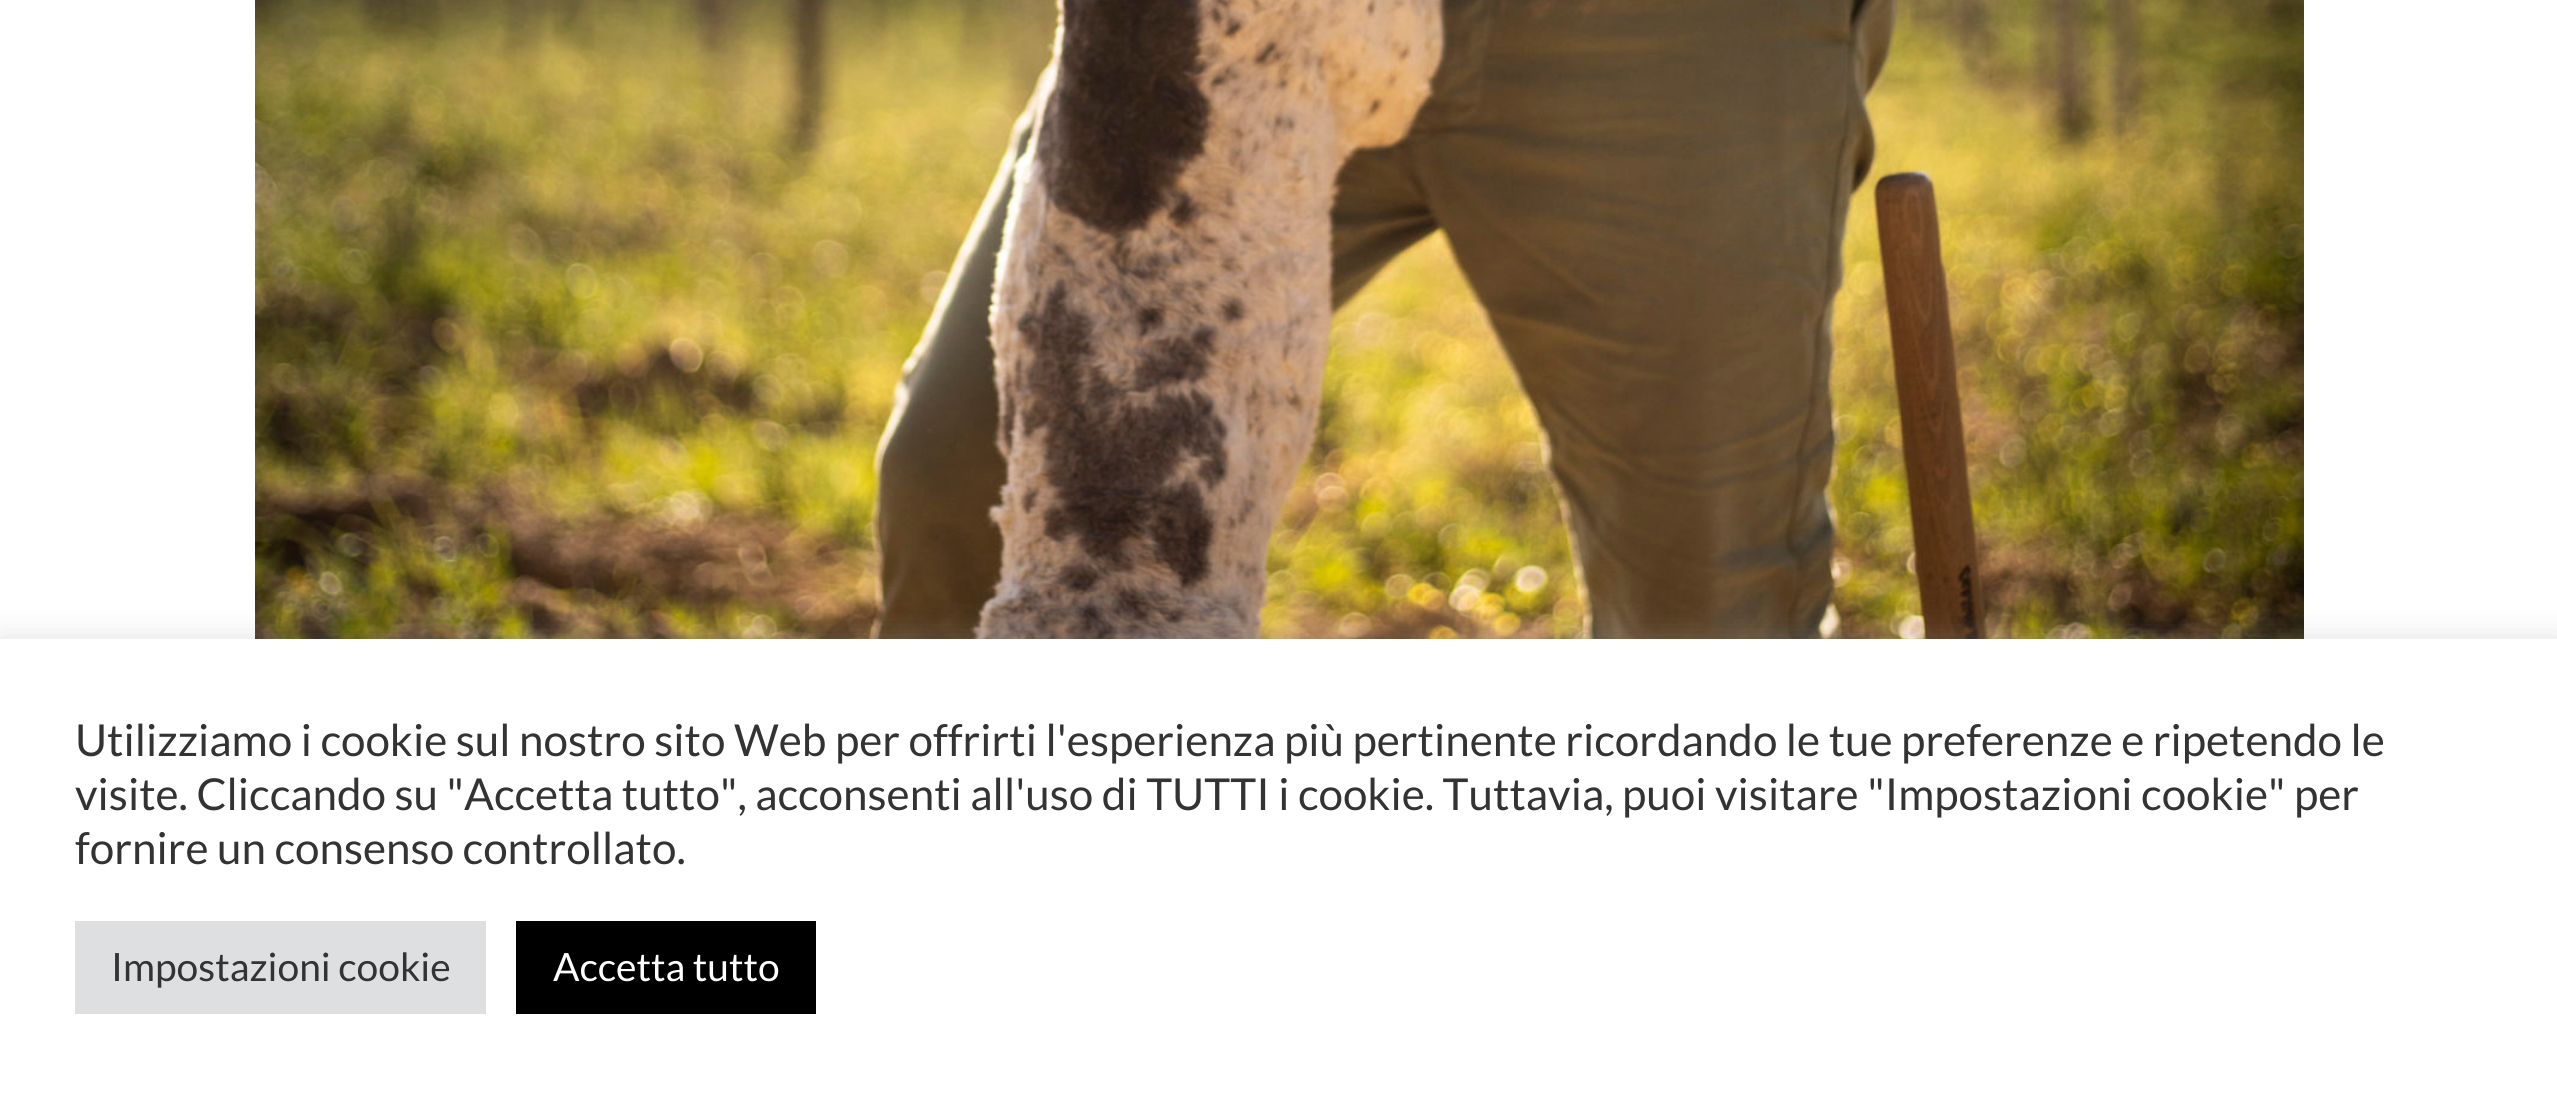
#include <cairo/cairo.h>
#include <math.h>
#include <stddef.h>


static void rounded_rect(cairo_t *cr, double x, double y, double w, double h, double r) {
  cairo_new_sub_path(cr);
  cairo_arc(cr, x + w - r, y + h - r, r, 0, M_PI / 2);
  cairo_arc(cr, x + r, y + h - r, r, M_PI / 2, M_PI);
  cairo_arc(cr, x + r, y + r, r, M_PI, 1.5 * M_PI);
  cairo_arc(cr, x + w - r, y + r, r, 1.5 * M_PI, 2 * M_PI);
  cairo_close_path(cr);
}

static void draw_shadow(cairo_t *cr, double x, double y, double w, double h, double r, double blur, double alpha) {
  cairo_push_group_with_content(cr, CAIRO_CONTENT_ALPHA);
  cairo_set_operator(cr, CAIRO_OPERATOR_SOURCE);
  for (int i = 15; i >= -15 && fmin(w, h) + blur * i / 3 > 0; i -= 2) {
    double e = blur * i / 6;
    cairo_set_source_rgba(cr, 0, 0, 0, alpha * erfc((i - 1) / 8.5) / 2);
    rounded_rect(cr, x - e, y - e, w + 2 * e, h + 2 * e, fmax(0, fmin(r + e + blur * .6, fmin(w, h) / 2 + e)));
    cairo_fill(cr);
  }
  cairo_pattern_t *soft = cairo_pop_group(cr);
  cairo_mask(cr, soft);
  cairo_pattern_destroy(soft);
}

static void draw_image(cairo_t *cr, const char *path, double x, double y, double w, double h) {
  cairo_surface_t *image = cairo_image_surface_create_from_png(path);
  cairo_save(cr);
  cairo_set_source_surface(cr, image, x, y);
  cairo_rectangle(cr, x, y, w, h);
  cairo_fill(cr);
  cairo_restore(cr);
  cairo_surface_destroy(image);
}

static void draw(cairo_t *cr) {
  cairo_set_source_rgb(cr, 1, 1, 1);
  cairo_paint(cr);
  draw_image(cr, "images/1.png", 255, 0, 2049, 639);
  cairo_set_source_rgb(cr, 172 / 255.0, 171 / 255.0, 171 / 255.0);
  draw_shadow(cr, 0, 636, 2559, 465, 0, 15, 0.3);
  cairo_set_source_rgb(cr, 1, 1, 1);
  cairo_rectangle(cr, 0, 639, 2557, 463);
  cairo_fill(cr);
  cairo_set_source_rgb(cr, 222 / 255.0, 223 / 255.0, 224 / 255.0);
  cairo_rectangle(cr, 75, 921, 411, 93);
  cairo_fill(cr);
  cairo_set_source_rgb(cr, 0, 0, 0);
  cairo_rectangle(cr, 516, 921, 300, 93);
  cairo_fill(cr);
  cairo_select_font_face(cr, "Lato", CAIRO_FONT_SLANT_NORMAL, CAIRO_FONT_WEIGHT_NORMAL);
  cairo_set_font_size(cr, 44);
  cairo_set_source_rgb(cr, 51 / 255.0, 51 / 255.0, 51 / 255.0);
  cairo_move_to(cr, 75, 756);
  cairo_show_text(cr, "Utilizziamo i cookie sul nostro sito Web per offrirti l'esperienza più pertinente ricordando le tue preferenze e ripetendo le");
  cairo_move_to(cr, 75, 810);
  cairo_show_text(cr, "visite. Cliccando su \"Accetta tutto\", acconsenti all'uso di TUTTI i cookie. Tuttavia, puoi visitare \"Impostazioni cookie\" per");
  cairo_move_to(cr, 75, 864);
  cairo_show_text(cr, "fornire un consenso controllato.");
  cairo_set_font_size(cr, 39);
  cairo_move_to(cr, 111, 981);
  cairo_show_text(cr, "Impostazioni cookie");
  cairo_set_source_rgb(cr, 1, 1, 1);
  cairo_move_to(cr, 553, 981);
  cairo_show_text(cr, "Accetta tutto");
}

int main(void) {
  cairo_surface_t *surface = cairo_image_surface_create(CAIRO_FORMAT_RGB24, 2557, 1102);
  cairo_t *cr = cairo_create(surface);
  cairo_font_options_t *options = cairo_font_options_create();
  cairo_font_options_set_hint_metrics(options, CAIRO_HINT_METRICS_OFF);
  cairo_font_options_set_hint_style(options, CAIRO_HINT_STYLE_NONE);
  cairo_set_font_options(cr, options);
  cairo_set_miter_limit(cr, 4);
  draw(cr);
  cairo_surface_write_to_png(surface, "out.png");
  cairo_font_options_destroy(options);
  cairo_destroy(cr);
  cairo_surface_destroy(surface);
  return 0;
}
